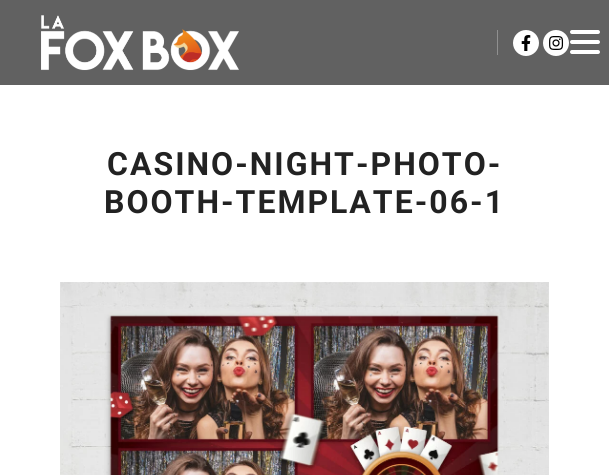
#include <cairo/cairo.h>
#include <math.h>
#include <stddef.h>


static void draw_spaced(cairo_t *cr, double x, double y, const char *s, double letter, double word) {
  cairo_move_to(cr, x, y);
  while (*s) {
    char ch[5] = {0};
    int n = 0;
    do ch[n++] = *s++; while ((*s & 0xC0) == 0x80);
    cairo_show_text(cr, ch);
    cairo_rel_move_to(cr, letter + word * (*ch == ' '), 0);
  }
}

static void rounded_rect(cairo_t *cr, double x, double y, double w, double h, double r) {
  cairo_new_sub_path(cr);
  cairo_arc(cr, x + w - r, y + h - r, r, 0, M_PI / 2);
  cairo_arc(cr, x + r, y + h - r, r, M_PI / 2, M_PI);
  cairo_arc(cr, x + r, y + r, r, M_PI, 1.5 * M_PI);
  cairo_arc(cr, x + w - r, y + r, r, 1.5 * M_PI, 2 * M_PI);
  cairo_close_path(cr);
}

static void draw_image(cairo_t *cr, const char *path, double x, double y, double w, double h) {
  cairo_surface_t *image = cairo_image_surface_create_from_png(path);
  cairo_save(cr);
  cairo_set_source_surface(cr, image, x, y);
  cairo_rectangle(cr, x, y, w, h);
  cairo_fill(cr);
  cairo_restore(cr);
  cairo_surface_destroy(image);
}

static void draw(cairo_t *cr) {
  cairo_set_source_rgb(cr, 1, 1, 1);
  cairo_paint(cr);
  cairo_set_source_rgb(cr, 97 / 255.0, 97 / 255.0, 97 / 255.0);
  cairo_rectangle(cr, 0, 0, 609, 85);
  cairo_fill(cr);
  cairo_set_source_rgb(cr, 1, 1, 1);
  rounded_rect(cr, 570, 30, 30, 4, 2);
  cairo_fill(cr);
  rounded_rect(cr, 570, 40, 30, 4, 2);
  cairo_fill(cr);
  rounded_rect(cr, 570, 50, 30, 4, 2);
  cairo_fill(cr);
  draw_image(cr, "images/1.png", 41, 15, 198, 56);
  cairo_set_source_rgb(cr, 144 / 255.0, 144 / 255.0, 144 / 255.0);
  cairo_rectangle(cr, 497, 30, 1, 25);
  cairo_fill(cr);
  cairo_set_source_rgb(cr, 1, 1, 1);
  cairo_arc(cr, 526, 43, 13, 0, 2 * M_PI);
  cairo_fill(cr);
  draw_image(cr, "images/2.png", 521, 35, 10, 16);
  cairo_arc(cr, 556, 43, 13, 0, 2 * M_PI);
  cairo_fill(cr);
  draw_image(cr, "images/3.png", 549, 36, 15, 14);
  draw_image(cr, "images/4.png", 60, 282, 489, 193);
  cairo_select_font_face(cr, "Roboto", CAIRO_FONT_SLANT_NORMAL, CAIRO_FONT_WEIGHT_BOLD);
  cairo_set_font_size(cr, 32);
  cairo_set_source_rgb(cr, 34 / 255.0, 34 / 255.0, 34 / 255.0);
  draw_spaced(cr, 107, 175, "CASINO-NIGHT-PHOTO-", 2, 0);
  draw_spaced(cr, 104, 213, "BOOTH-TEMPLATE-06-1", 2, 0);
}

int main(void) {
  cairo_surface_t *surface = cairo_image_surface_create(CAIRO_FORMAT_RGB24, 609, 475);
  cairo_t *cr = cairo_create(surface);
  cairo_font_options_t *options = cairo_font_options_create();
  cairo_font_options_set_hint_metrics(options, CAIRO_HINT_METRICS_OFF);
  cairo_font_options_set_hint_style(options, CAIRO_HINT_STYLE_NONE);
  cairo_set_font_options(cr, options);
  cairo_set_miter_limit(cr, 4);
  draw(cr);
  cairo_surface_write_to_png(surface, "out.png");
  cairo_font_options_destroy(options);
  cairo_destroy(cr);
  cairo_surface_destroy(surface);
  return 0;
}
